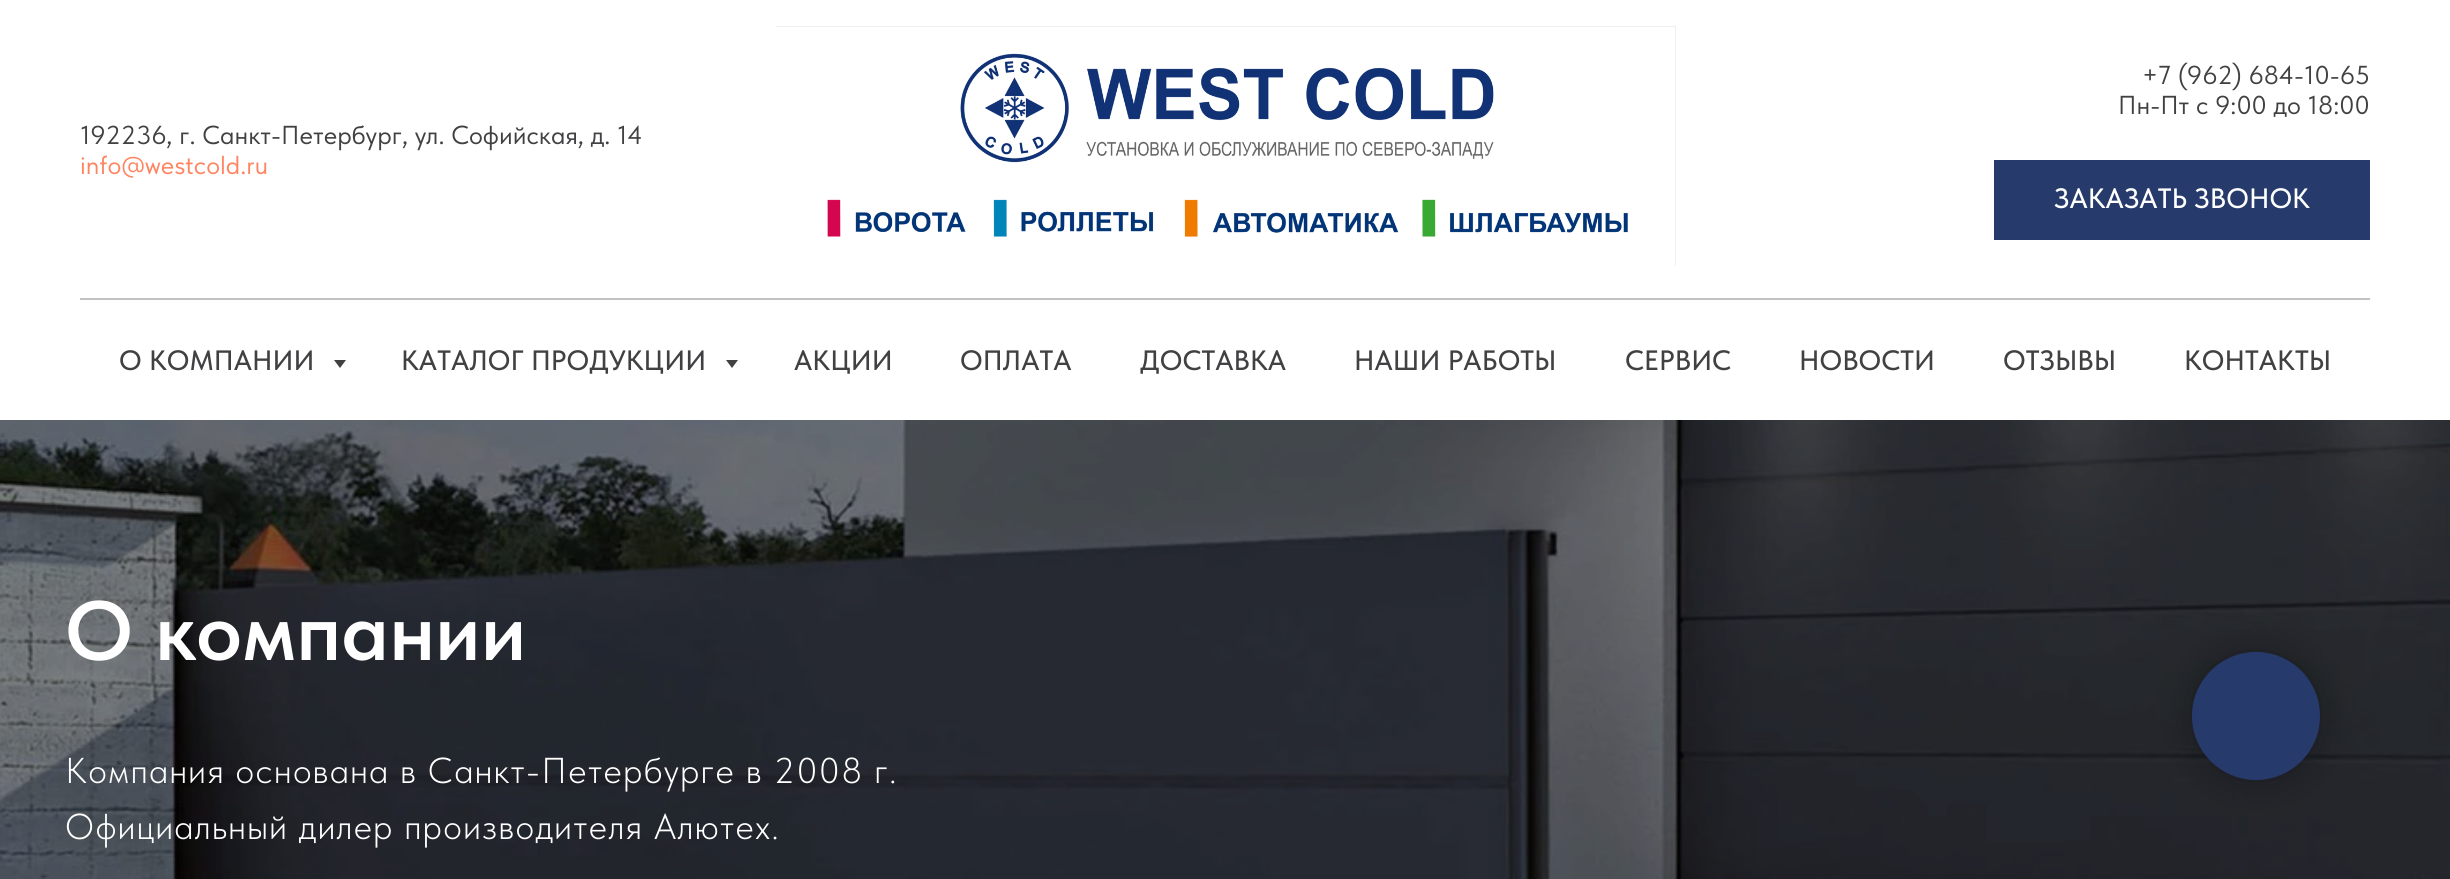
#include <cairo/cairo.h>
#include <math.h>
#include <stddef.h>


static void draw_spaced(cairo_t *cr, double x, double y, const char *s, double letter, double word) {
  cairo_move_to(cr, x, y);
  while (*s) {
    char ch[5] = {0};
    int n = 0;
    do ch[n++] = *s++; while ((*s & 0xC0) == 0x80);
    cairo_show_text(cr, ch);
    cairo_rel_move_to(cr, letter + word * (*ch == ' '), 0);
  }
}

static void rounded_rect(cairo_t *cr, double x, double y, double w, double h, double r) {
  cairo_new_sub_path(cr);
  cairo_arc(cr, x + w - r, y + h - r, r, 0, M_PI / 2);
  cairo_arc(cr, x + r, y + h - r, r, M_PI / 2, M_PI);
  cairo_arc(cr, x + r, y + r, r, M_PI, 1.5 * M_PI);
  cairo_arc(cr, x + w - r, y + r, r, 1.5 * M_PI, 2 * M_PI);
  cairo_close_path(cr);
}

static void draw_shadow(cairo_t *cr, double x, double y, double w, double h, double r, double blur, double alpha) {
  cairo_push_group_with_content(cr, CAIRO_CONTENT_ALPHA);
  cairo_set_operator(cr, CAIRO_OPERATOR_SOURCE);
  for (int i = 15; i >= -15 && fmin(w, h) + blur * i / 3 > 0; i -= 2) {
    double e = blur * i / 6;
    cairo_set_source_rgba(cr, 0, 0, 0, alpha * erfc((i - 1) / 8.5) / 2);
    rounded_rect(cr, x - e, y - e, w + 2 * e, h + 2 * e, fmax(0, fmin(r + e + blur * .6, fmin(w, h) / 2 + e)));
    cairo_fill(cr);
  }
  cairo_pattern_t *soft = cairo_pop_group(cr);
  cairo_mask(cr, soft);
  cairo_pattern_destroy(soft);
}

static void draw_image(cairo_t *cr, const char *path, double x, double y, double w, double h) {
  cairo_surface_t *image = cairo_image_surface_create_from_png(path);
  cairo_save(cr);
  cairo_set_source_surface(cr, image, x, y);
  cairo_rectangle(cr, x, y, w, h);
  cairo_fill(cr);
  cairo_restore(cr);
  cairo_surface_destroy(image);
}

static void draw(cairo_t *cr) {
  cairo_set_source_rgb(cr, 1, 1, 1);
  cairo_paint(cr);
  draw_image(cr, "images/1.png", 776, 26, 900, 240);
  cairo_set_source_rgb(cr, 38 / 255.0, 58 / 255.0, 108 / 255.0);
  cairo_rectangle(cr, 1994, 160, 376, 80);
  cairo_fill(cr);
  cairo_set_source_rgb(cr, 194 / 255.0, 194 / 255.0, 194 / 255.0);
  cairo_rectangle(cr, 80, 298, 2290, 2);
  cairo_fill(cr);
  cairo_set_source_rgb(cr, 65 / 255.0, 64 / 255.0, 66 / 255.0);
  cairo_new_path(cr);
  cairo_move_to(cr, 334, 360);
  cairo_line_to(cr, 346, 360);
  cairo_line_to(cr, 340, 368);
  cairo_close_path(cr);
  cairo_fill(cr);
  cairo_new_path(cr);
  cairo_move_to(cr, 726, 360);
  cairo_line_to(cr, 738, 360);
  cairo_line_to(cr, 732, 368);
  cairo_close_path(cr);
  cairo_fill(cr);
  draw_image(cr, "images/2.png", 0, 420, 2450, 459);
  cairo_set_source_rgb(cr, 0, 0, 0);
  draw_shadow(cr, 2192, 652, 128, 128, 64, 20, 0.3);
  cairo_set_source_rgb(cr, 38 / 255.0, 58 / 255.0, 108 / 255.0);
  cairo_arc(cr, 2256, 716, 62, 0, 2 * M_PI);
  cairo_fill_preserve(cr);
  cairo_set_line_width(cr, 4);
  cairo_stroke(cr);
  cairo_select_font_face(cr, "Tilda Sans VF", CAIRO_FONT_SLANT_NORMAL, CAIRO_FONT_WEIGHT_NORMAL);
  cairo_set_font_size(cr, 26);
  cairo_set_source_rgb(cr, 65 / 255.0, 64 / 255.0, 66 / 255.0);
  cairo_move_to(cr, 80, 144);
  cairo_show_text(cr, "192236, г. Санкт-Петербург, ул. Софийская, д. 14");
  cairo_set_source_rgb(cr, 1, 133 / 255.0, 98 / 255.0);
  cairo_move_to(cr, 80, 174);
  cairo_show_text(cr, "info@westcold.ru");
  cairo_set_source_rgb(cr, 65 / 255.0, 64 / 255.0, 66 / 255.0);
  cairo_move_to(cr, 2142, 84);
  cairo_show_text(cr, "+7 (962) 684-10-65");
  cairo_move_to(cr, 2118, 114);
  cairo_show_text(cr, "Пн-Пт с 9:00 до 18:00");
  cairo_select_font_face(cr, "Tilda Sans VF Medium", CAIRO_FONT_SLANT_NORMAL, CAIRO_FONT_WEIGHT_NORMAL);
  cairo_set_font_size(cr, 28);
  cairo_set_source_rgb(cr, 1, 1, 1);
  cairo_move_to(cr, 2054, 208);
  cairo_show_text(cr, "ЗАКАЗАТЬ ЗВОНОК");
  cairo_set_source_rgb(cr, 65 / 255.0, 64 / 255.0, 66 / 255.0);
  cairo_move_to(cr, 119, 370);
  cairo_show_text(cr, "О КОМПАНИИ");
  cairo_move_to(cr, 401, 370);
  cairo_show_text(cr, "КАТАЛОГ ПРОДУКЦИИ");
  cairo_move_to(cr, 794, 370);
  cairo_show_text(cr, "АКЦИИ");
  cairo_move_to(cr, 960, 370);
  cairo_show_text(cr, "ОПЛАТА");
  cairo_move_to(cr, 1140, 370);
  cairo_show_text(cr, "ДОСТАВКА");
  cairo_move_to(cr, 1354, 370);
  cairo_show_text(cr, "НАШИ РАБОТЫ");
  cairo_move_to(cr, 1625, 370);
  cairo_show_text(cr, "СЕРВИС");
  cairo_move_to(cr, 1799, 370);
  cairo_show_text(cr, "НОВОСТИ");
  cairo_move_to(cr, 2003, 370);
  cairo_show_text(cr, "ОТЗЫВЫ");
  cairo_move_to(cr, 2184, 370);
  cairo_show_text(cr, "КОНТАКТЫ");
  cairo_select_font_face(cr, "Tilda Sans VF SemiBold", CAIRO_FONT_SLANT_NORMAL, CAIRO_FONT_WEIGHT_NORMAL);
  cairo_set_font_size(cr, 84);
  cairo_set_source_rgb(cr, 1, 1, 1);
  cairo_move_to(cr, 65, 660);
  cairo_show_text(cr, "О компании");
  cairo_select_font_face(cr, "Tilda Sans VF Light", CAIRO_FONT_SLANT_NORMAL, CAIRO_FONT_WEIGHT_NORMAL);
  cairo_set_font_size(cr, 36);
  draw_spaced(cr, 65, 783, "Компания основана в Санкт-Петербурге в 2008 г.", 1.4, 0);
  draw_spaced(cr, 65, 839, "Официальный дилер производителя Алютех.", 1.4, 0);
}

int main(void) {
  cairo_surface_t *surface = cairo_image_surface_create(CAIRO_FORMAT_RGB24, 2450, 879);
  cairo_t *cr = cairo_create(surface);
  cairo_font_options_t *options = cairo_font_options_create();
  cairo_font_options_set_hint_metrics(options, CAIRO_HINT_METRICS_OFF);
  cairo_font_options_set_hint_style(options, CAIRO_HINT_STYLE_NONE);
  cairo_set_font_options(cr, options);
  cairo_set_miter_limit(cr, 4);
  draw(cr);
  cairo_surface_write_to_png(surface, "out.png");
  cairo_font_options_destroy(options);
  cairo_destroy(cr);
  cairo_surface_destroy(surface);
  return 0;
}
